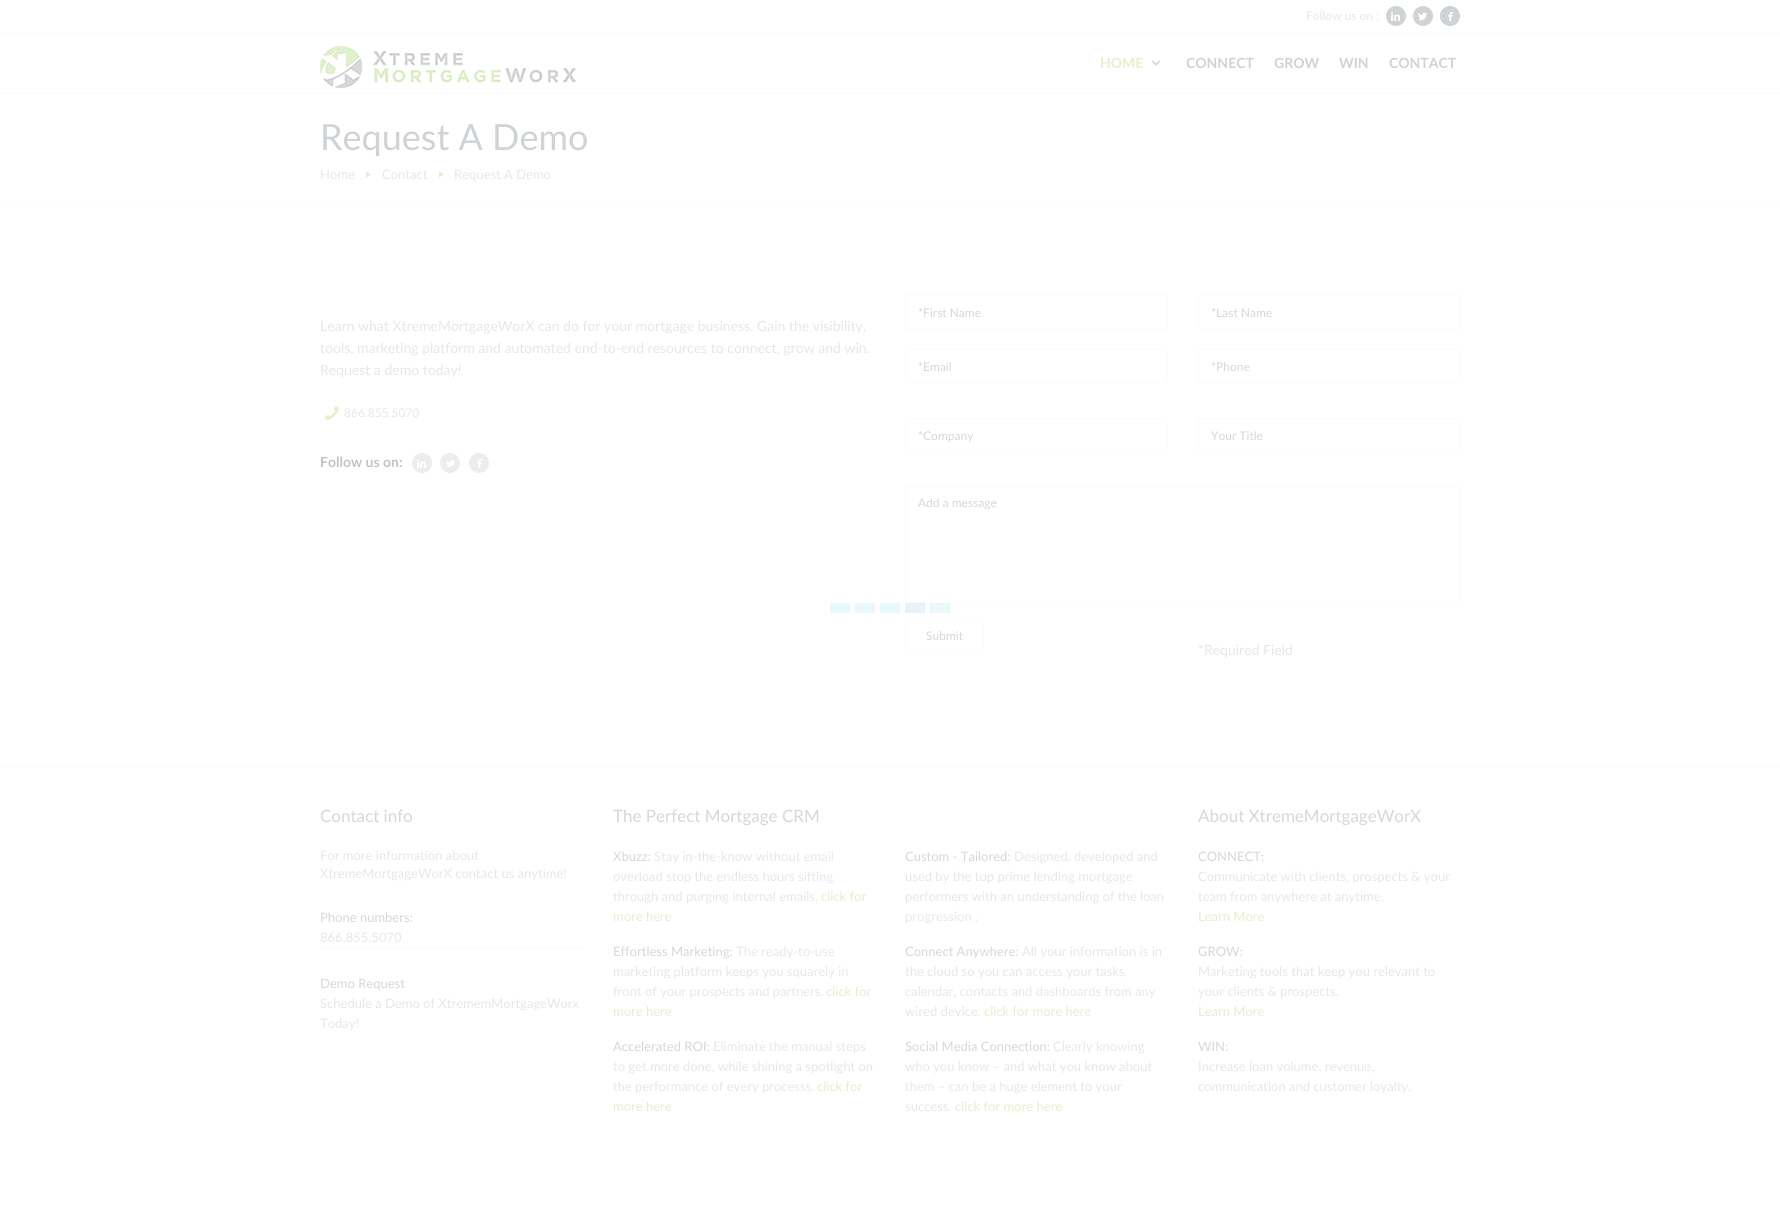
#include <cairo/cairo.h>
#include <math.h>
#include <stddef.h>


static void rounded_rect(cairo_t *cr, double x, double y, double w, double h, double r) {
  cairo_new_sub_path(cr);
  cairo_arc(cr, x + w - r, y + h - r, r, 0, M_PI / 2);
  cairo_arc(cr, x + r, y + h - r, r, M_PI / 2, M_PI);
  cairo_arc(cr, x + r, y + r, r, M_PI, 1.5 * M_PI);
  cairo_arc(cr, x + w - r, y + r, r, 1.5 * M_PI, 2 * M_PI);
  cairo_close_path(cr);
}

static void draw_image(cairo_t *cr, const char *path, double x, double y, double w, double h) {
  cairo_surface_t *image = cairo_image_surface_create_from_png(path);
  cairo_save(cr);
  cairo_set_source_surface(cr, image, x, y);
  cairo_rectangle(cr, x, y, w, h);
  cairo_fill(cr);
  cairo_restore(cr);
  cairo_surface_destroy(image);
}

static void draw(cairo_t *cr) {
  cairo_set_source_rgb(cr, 1, 1, 1);
  cairo_paint(cr);
  cairo_set_source_rgb(cr, 207 / 255.0, 211 / 255.0, 213 / 255.0);
  cairo_arc(cr, 1396, 16, 10, 0, 2 * M_PI);
  cairo_fill(cr);
  draw_image(cr, "images/1.png", 1391, 12, 9, 9);
  cairo_arc(cr, 1423, 16, 10, 0, 2 * M_PI);
  cairo_fill(cr);
  draw_image(cr, "images/2.png", 1418, 12, 9, 9);
  cairo_arc(cr, 1450, 16, 10, 0, 2 * M_PI);
  cairo_fill(cr);
  draw_image(cr, "images/3.png", 1448, 12, 5, 9);
  cairo_set_source_rgb(cr, 251 / 255.0, 251 / 255.0, 251 / 255.0);
  cairo_rectangle(cr, 0, 32, 1780, 1);
  cairo_fill(cr);
  cairo_rectangle(cr, 0, 93, 1780, 1);
  cairo_fill(cr);
  draw_image(cr, "images/4.png", 320, 46, 256, 42);
  draw_image(cr, "images/5.png", 1152, 60, 9, 6);
  cairo_rectangle(cr, 0, 204, 1780, 1);
  cairo_fill(cr);
  cairo_set_source_rgb(cr, 226 / 255.0, 240 / 255.0, 205 / 255.0);
  cairo_new_path(cr);
  cairo_move_to(cr, 366, 171.5);
  cairo_line_to(cr, 371, 174.5);
  cairo_line_to(cr, 366, 177.5);
  cairo_close_path(cr);
  cairo_fill(cr);
  cairo_new_path(cr);
  cairo_move_to(cr, 439, 171.5);
  cairo_line_to(cr, 444, 174.5);
  cairo_line_to(cr, 439, 177.5);
  cairo_close_path(cr);
  cairo_fill(cr);
  draw_image(cr, "images/6.png", 325, 406, 14, 14);
  cairo_set_source_rgb(cr, 237 / 255.0, 237 / 255.0, 237 / 255.0);
  cairo_arc(cr, 422, 463, 10, 0, 2 * M_PI);
  cairo_fill(cr);
  draw_image(cr, "images/7.png", 417, 459, 9, 9);
  cairo_arc(cr, 450, 463, 10, 0, 2 * M_PI);
  cairo_fill(cr);
  draw_image(cr, "images/8.png", 446, 459, 9, 9);
  cairo_arc(cr, 479, 463, 10, 0, 2 * M_PI);
  cairo_fill(cr);
  draw_image(cr, "images/9.png", 477, 459, 5, 9);
  rounded_rect(cr, 905.5, 295.5, 262, 33, 0.5);
  cairo_set_source_rgb(cr, 251 / 255.0, 251 / 255.0, 251 / 255.0);
  cairo_set_line_width(cr, 1);
  cairo_stroke(cr);
  rounded_rect(cr, 1198.5, 295.5, 261, 33, 0.5);
  cairo_stroke(cr);
  rounded_rect(cr, 905.5, 349.5, 262, 33, 0.5);
  cairo_stroke(cr);
  rounded_rect(cr, 1198.5, 349.5, 261, 33, 0.5);
  cairo_stroke(cr);
  rounded_rect(cr, 905.5, 418.5, 262, 33, 0.5);
  cairo_stroke(cr);
  rounded_rect(cr, 1198.5, 418.5, 261, 33, 0.5);
  cairo_stroke(cr);
  rounded_rect(cr, 905.5, 487.5, 554, 116, 0.5);
  cairo_stroke(cr);
  rounded_rect(cr, 905.5, 619.5, 78, 32, 0.5);
  cairo_stroke(cr);
  draw_image(cr, "images/10.png", 830, 603, 120, 10);
  cairo_rectangle(cr, 0, 766, 1780, 1);
  cairo_fill(cr);
  cairo_set_source_rgb(cr, 250 / 255.0, 250 / 255.0, 250 / 255.0);
  cairo_rectangle(cr, 320, 947, 263, 1);
  cairo_fill(cr);
  cairo_select_font_face(cr, "Lato", CAIRO_FONT_SLANT_NORMAL, CAIRO_FONT_WEIGHT_NORMAL);
  cairo_set_font_size(cr, 12);
  cairo_set_source_rgb(cr, 231 / 255.0, 231 / 255.0, 231 / 255.0);
  cairo_move_to(cr, 1306, 20);
  cairo_show_text(cr, "Follow us on :");
  cairo_select_font_face(cr, "Lato", CAIRO_FONT_SLANT_NORMAL, CAIRO_FONT_WEIGHT_BOLD);
  cairo_set_font_size(cr, 14);
  cairo_set_source_rgb(cr, 226 / 255.0, 240 / 255.0, 205 / 255.0);
  cairo_move_to(cr, 1100, 68);
  cairo_show_text(cr, "HOME");
  cairo_set_source_rgb(cr, 207 / 255.0, 211 / 255.0, 213 / 255.0);
  cairo_move_to(cr, 1186, 68);
  cairo_show_text(cr, "CONNECT");
  cairo_move_to(cr, 1274, 68);
  cairo_show_text(cr, "GROW");
  cairo_move_to(cr, 1339, 68);
  cairo_show_text(cr, "WIN");
  cairo_move_to(cr, 1389, 68);
  cairo_show_text(cr, "CONTACT");
  cairo_select_font_face(cr, "Lato", CAIRO_FONT_SLANT_NORMAL, CAIRO_FONT_WEIGHT_NORMAL);
  cairo_set_font_size(cr, 36);
  cairo_move_to(cr, 320, 150);
  cairo_show_text(cr, "Request A Demo");
  cairo_set_font_size(cr, 13);
  cairo_set_source_rgb(cr, 231 / 255.0, 231 / 255.0, 231 / 255.0);
  cairo_move_to(cr, 320, 179);
  cairo_show_text(cr, "Home");
  cairo_move_to(cr, 382, 179);
  cairo_show_text(cr, "Contact");
  cairo_move_to(cr, 454, 179);
  cairo_show_text(cr, "Request A Demo");
  cairo_set_font_size(cr, 14);
  cairo_move_to(cr, 320, 331);
  cairo_show_text(cr, "Learn what XtremeMortgageWorX can do for your mortgage business. Gain the visibility,");
  cairo_move_to(cr, 320, 353);
  cairo_show_text(cr, "tools, marketing platform and automated end-to-end resources to connect, grow and win.");
  cairo_move_to(cr, 320, 375);
  cairo_show_text(cr, "Request a demo today!");
  cairo_set_font_size(cr, 12);
  cairo_move_to(cr, 344, 417);
  cairo_show_text(cr, "866.855.5070");
  cairo_select_font_face(cr, "Lato", CAIRO_FONT_SLANT_NORMAL, CAIRO_FONT_WEIGHT_BOLD);
  cairo_set_font_size(cr, 14);
  cairo_set_source_rgb(cr, 196 / 255.0, 196 / 255.0, 197 / 255.0);
  cairo_move_to(cr, 320, 467);
  cairo_show_text(cr, "Follow us on:");
  cairo_select_font_face(cr, "Lato", CAIRO_FONT_SLANT_NORMAL, CAIRO_FONT_WEIGHT_NORMAL);
  cairo_set_font_size(cr, 12);
  cairo_set_source_rgb(cr, 215 / 255.0, 215 / 255.0, 215 / 255.0);
  cairo_move_to(cr, 918, 317);
  cairo_show_text(cr, "*First Name");
  cairo_move_to(cr, 1211, 317);
  cairo_show_text(cr, "*Last Name");
  cairo_move_to(cr, 918, 371);
  cairo_show_text(cr, "*Email");
  cairo_move_to(cr, 1211, 371);
  cairo_show_text(cr, "*Phone");
  cairo_move_to(cr, 918, 440);
  cairo_show_text(cr, "*Company");
  cairo_move_to(cr, 1211, 440);
  cairo_show_text(cr, "Your Title");
  cairo_move_to(cr, 918, 507);
  cairo_show_text(cr, "Add a message");
  cairo_move_to(cr, 926, 640);
  cairo_show_text(cr, "Submit");
  cairo_set_font_size(cr, 14);
  cairo_set_source_rgb(cr, 231 / 255.0, 231 / 255.0, 231 / 255.0);
  cairo_move_to(cr, 1198, 655);
  cairo_show_text(cr, "*Required Field");
  cairo_set_font_size(cr, 17);
  cairo_set_source_rgb(cr, 215 / 255.0, 215 / 255.0, 215 / 255.0);
  cairo_move_to(cr, 320, 822);
  cairo_show_text(cr, "Contact info");
  cairo_set_font_size(cr, 13);
  cairo_set_source_rgb(cr, 231 / 255.0, 231 / 255.0, 231 / 255.0);
  cairo_move_to(cr, 320, 860);
  cairo_show_text(cr, "For more information about");
  cairo_move_to(cr, 320, 878);
  cairo_show_text(cr, "XtremeMortgageWorX contact us anytime!");
  cairo_set_source_rgb(cr, 215 / 255.0, 215 / 255.0, 215 / 255.0);
  cairo_move_to(cr, 320, 922);
  cairo_show_text(cr, "Phone numbers:");
  cairo_set_source_rgb(cr, 231 / 255.0, 231 / 255.0, 231 / 255.0);
  cairo_move_to(cr, 320, 942);
  cairo_show_text(cr, "866.855.5070");
  cairo_set_source_rgb(cr, 215 / 255.0, 215 / 255.0, 215 / 255.0);
  cairo_move_to(cr, 320, 988);
  cairo_show_text(cr, "Demo Request");
  cairo_set_source_rgb(cr, 231 / 255.0, 231 / 255.0, 231 / 255.0);
  cairo_move_to(cr, 320, 1008);
  cairo_show_text(cr, "Schedule a Demo of XtrememMortgageWorx");
  cairo_move_to(cr, 320, 1028);
  cairo_show_text(cr, "Today!");
  cairo_set_font_size(cr, 17);
  cairo_set_source_rgb(cr, 215 / 255.0, 215 / 255.0, 215 / 255.0);
  cairo_move_to(cr, 613, 822);
  cairo_show_text(cr, "The Perfect Mortgage CRM");
  cairo_set_font_size(cr, 13);
  cairo_move_to(cr, 613, 861);
  cairo_show_text(cr, "Xbuzz:");
  cairo_set_source_rgb(cr, 231 / 255.0, 231 / 255.0, 231 / 255.0);
  cairo_move_to(cr, 654, 861);
  cairo_show_text(cr, "Stay in-the-know without email");
  cairo_move_to(cr, 613, 881);
  cairo_show_text(cr, "overload stop the endless hours sifting");
  cairo_move_to(cr, 613, 901);
  cairo_show_text(cr, "through and purging internal emails.");
  cairo_set_source_rgb(cr, 226 / 255.0, 240 / 255.0, 205 / 255.0);
  cairo_move_to(cr, 821, 901);
  cairo_show_text(cr, "click for");
  cairo_move_to(cr, 613, 921);
  cairo_show_text(cr, "more here");
  cairo_set_source_rgb(cr, 215 / 255.0, 215 / 255.0, 215 / 255.0);
  cairo_move_to(cr, 613, 956);
  cairo_show_text(cr, "Effortless Marketing:");
  cairo_set_source_rgb(cr, 231 / 255.0, 231 / 255.0, 231 / 255.0);
  cairo_move_to(cr, 736, 956);
  cairo_show_text(cr, "The ready-to-use");
  cairo_move_to(cr, 613, 976);
  cairo_show_text(cr, "marketing platform keeps you squarely in");
  cairo_move_to(cr, 613, 996);
  cairo_show_text(cr, "front of your prospects and partners.");
  cairo_set_source_rgb(cr, 226 / 255.0, 240 / 255.0, 205 / 255.0);
  cairo_move_to(cr, 826, 996);
  cairo_show_text(cr, "click for");
  cairo_move_to(cr, 613, 1016);
  cairo_show_text(cr, "more here");
  cairo_set_source_rgb(cr, 215 / 255.0, 215 / 255.0, 215 / 255.0);
  cairo_move_to(cr, 613, 1051);
  cairo_show_text(cr, "Accelerated ROI:");
  cairo_set_source_rgb(cr, 231 / 255.0, 231 / 255.0, 231 / 255.0);
  cairo_move_to(cr, 713, 1051);
  cairo_show_text(cr, "Eliminate the manual steps");
  cairo_move_to(cr, 613, 1071);
  cairo_show_text(cr, "to get more done, while shining a spotlight on");
  cairo_move_to(cr, 613, 1091);
  cairo_show_text(cr, "the performance of every processs.");
  cairo_set_source_rgb(cr, 226 / 255.0, 240 / 255.0, 205 / 255.0);
  cairo_move_to(cr, 817, 1091);
  cairo_show_text(cr, "click for");
  cairo_move_to(cr, 613, 1111);
  cairo_show_text(cr, "more here");
  cairo_set_source_rgb(cr, 215 / 255.0, 215 / 255.0, 215 / 255.0);
  cairo_move_to(cr, 905, 861);
  cairo_show_text(cr, "Custom - Tailored:");
  cairo_set_source_rgb(cr, 231 / 255.0, 231 / 255.0, 231 / 255.0);
  cairo_move_to(cr, 1014, 861);
  cairo_show_text(cr, "Designed, developed and");
  cairo_move_to(cr, 905, 881);
  cairo_show_text(cr, "used by the top prime lending mortgage");
  cairo_move_to(cr, 905, 901);
  cairo_show_text(cr, "performers with an understanding of the loan");
  cairo_move_to(cr, 905, 921);
  cairo_show_text(cr, "progression .");
  cairo_set_source_rgb(cr, 215 / 255.0, 215 / 255.0, 215 / 255.0);
  cairo_move_to(cr, 905, 956);
  cairo_show_text(cr, "Connect Anywhere:");
  cairo_set_source_rgb(cr, 231 / 255.0, 231 / 255.0, 231 / 255.0);
  cairo_move_to(cr, 1022, 956);
  cairo_show_text(cr, "All your information is in");
  cairo_move_to(cr, 905, 976);
  cairo_show_text(cr, "the cloud so you can access your tasks,");
  cairo_move_to(cr, 905, 996);
  cairo_show_text(cr, "calendar, contacts and dashboards from any");
  cairo_move_to(cr, 905, 1016);
  cairo_show_text(cr, "wired device.");
  cairo_set_source_rgb(cr, 226 / 255.0, 240 / 255.0, 205 / 255.0);
  cairo_move_to(cr, 984, 1016);
  cairo_show_text(cr, "click for more here");
  cairo_set_source_rgb(cr, 215 / 255.0, 215 / 255.0, 215 / 255.0);
  cairo_move_to(cr, 905, 1051);
  cairo_show_text(cr, "Social Media Connection:");
  cairo_set_source_rgb(cr, 231 / 255.0, 231 / 255.0, 231 / 255.0);
  cairo_move_to(cr, 1053, 1051);
  cairo_show_text(cr, "Clearly knowing");
  cairo_move_to(cr, 905, 1071);
  cairo_show_text(cr, "who you know – and what you know about");
  cairo_move_to(cr, 905, 1091);
  cairo_show_text(cr, "them – can be a huge element to your");
  cairo_move_to(cr, 905, 1111);
  cairo_show_text(cr, "success.");
  cairo_set_source_rgb(cr, 226 / 255.0, 240 / 255.0, 205 / 255.0);
  cairo_move_to(cr, 955, 1111);
  cairo_show_text(cr, "click for more here");
  cairo_set_font_size(cr, 17);
  cairo_set_source_rgb(cr, 215 / 255.0, 215 / 255.0, 215 / 255.0);
  cairo_move_to(cr, 1198, 822);
  cairo_show_text(cr, "About XtremeMortgageWorX");
  cairo_set_font_size(cr, 13);
  cairo_move_to(cr, 1198, 861);
  cairo_show_text(cr, "CONNECT:");
  cairo_set_source_rgb(cr, 231 / 255.0, 231 / 255.0, 231 / 255.0);
  cairo_move_to(cr, 1198, 881);
  cairo_show_text(cr, "Communicate with clients, prospects & your");
  cairo_move_to(cr, 1198, 901);
  cairo_show_text(cr, "team from anywhere at anytime.");
  cairo_set_source_rgb(cr, 226 / 255.0, 240 / 255.0, 205 / 255.0);
  cairo_move_to(cr, 1198, 921);
  cairo_show_text(cr, "Learn More");
  cairo_set_source_rgb(cr, 215 / 255.0, 215 / 255.0, 215 / 255.0);
  cairo_move_to(cr, 1198, 956);
  cairo_show_text(cr, "GROW:");
  cairo_set_source_rgb(cr, 231 / 255.0, 231 / 255.0, 231 / 255.0);
  cairo_move_to(cr, 1198, 976);
  cairo_show_text(cr, "Marketing tools that keep you relevant to");
  cairo_move_to(cr, 1198, 996);
  cairo_show_text(cr, "your clients & prospects.");
  cairo_set_source_rgb(cr, 226 / 255.0, 240 / 255.0, 205 / 255.0);
  cairo_move_to(cr, 1198, 1016);
  cairo_show_text(cr, "Learn More");
  cairo_set_source_rgb(cr, 215 / 255.0, 215 / 255.0, 215 / 255.0);
  cairo_move_to(cr, 1198, 1051);
  cairo_show_text(cr, "WIN:");
  cairo_set_source_rgb(cr, 231 / 255.0, 231 / 255.0, 231 / 255.0);
  cairo_move_to(cr, 1198, 1071);
  cairo_show_text(cr, "Increase loan volume, revenue,");
  cairo_move_to(cr, 1198, 1091);
  cairo_show_text(cr, "communication and customer loyalty.");
}

int main(void) {
  cairo_surface_t *surface = cairo_image_surface_create(CAIRO_FORMAT_RGB24, 1780, 1226);
  cairo_t *cr = cairo_create(surface);
  cairo_font_options_t *options = cairo_font_options_create();
  cairo_font_options_set_hint_metrics(options, CAIRO_HINT_METRICS_OFF);
  cairo_font_options_set_hint_style(options, CAIRO_HINT_STYLE_NONE);
  cairo_set_font_options(cr, options);
  cairo_set_miter_limit(cr, 4);
  draw(cr);
  cairo_surface_write_to_png(surface, "out.png");
  cairo_font_options_destroy(options);
  cairo_destroy(cr);
  cairo_surface_destroy(surface);
  return 0;
}
